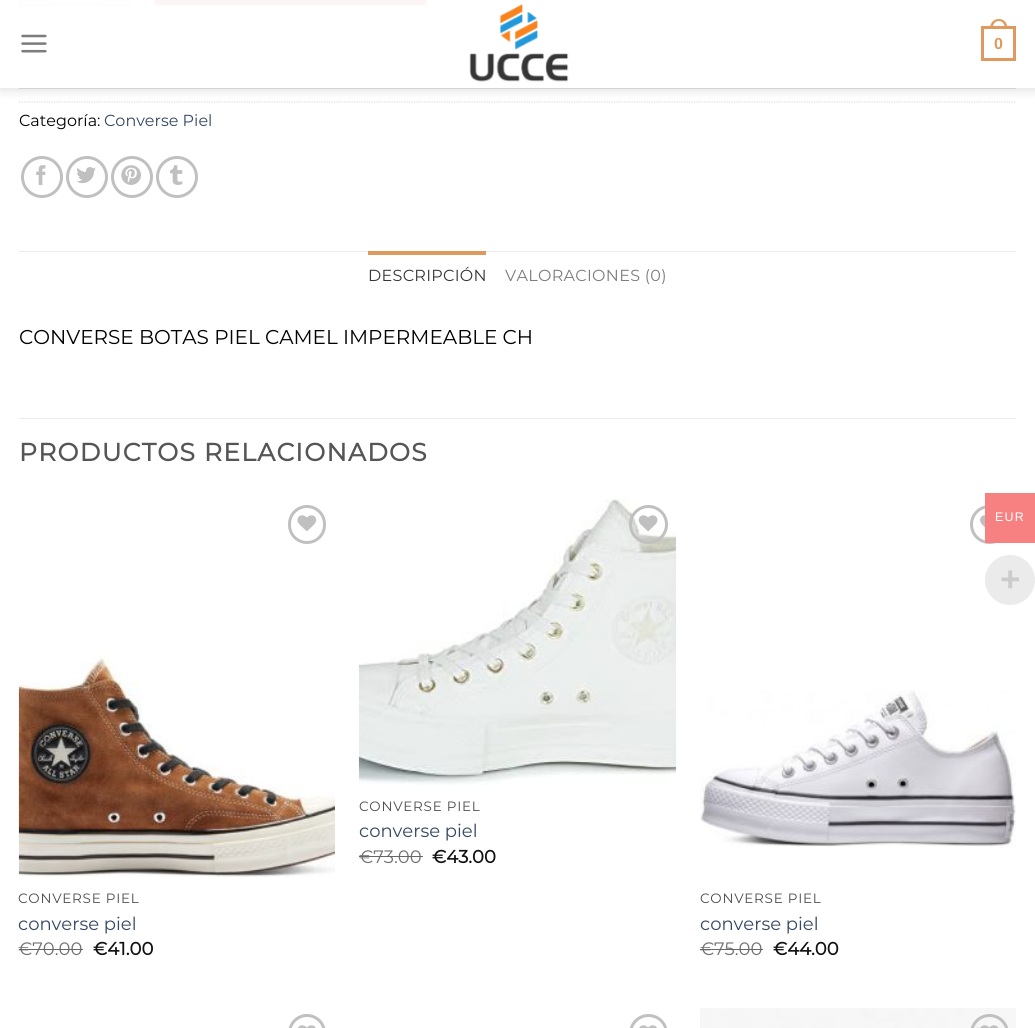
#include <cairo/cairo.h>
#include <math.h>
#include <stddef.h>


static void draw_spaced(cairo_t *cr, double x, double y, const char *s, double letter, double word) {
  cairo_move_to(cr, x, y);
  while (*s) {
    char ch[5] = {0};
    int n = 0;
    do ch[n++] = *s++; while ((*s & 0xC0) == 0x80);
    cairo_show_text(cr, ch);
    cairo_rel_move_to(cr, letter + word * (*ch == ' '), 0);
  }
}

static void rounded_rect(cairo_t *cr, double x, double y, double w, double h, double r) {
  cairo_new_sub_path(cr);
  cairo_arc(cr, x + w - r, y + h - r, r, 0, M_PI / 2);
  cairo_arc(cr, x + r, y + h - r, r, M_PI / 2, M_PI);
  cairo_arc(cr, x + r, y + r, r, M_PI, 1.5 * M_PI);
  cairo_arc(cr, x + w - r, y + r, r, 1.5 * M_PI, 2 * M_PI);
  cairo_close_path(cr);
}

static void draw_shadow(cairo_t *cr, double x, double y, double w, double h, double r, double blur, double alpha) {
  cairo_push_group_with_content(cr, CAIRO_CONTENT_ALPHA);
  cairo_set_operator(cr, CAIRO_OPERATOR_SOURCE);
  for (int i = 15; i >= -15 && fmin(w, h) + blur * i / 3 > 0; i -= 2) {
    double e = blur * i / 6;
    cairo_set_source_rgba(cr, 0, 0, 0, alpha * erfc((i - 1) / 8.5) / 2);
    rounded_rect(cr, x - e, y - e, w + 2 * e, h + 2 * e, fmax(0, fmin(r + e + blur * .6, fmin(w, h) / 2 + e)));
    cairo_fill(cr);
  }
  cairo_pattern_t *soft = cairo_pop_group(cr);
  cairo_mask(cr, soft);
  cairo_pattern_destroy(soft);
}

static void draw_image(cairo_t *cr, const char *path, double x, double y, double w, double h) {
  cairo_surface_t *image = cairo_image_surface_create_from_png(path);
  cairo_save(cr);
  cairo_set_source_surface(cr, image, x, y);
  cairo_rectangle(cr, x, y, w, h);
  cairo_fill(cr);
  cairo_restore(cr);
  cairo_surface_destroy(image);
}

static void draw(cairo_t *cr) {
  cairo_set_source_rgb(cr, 1, 1, 1);
  cairo_paint(cr);
  cairo_set_source_rgb(cr, 249 / 255.0, 249 / 255.0, 249 / 255.0);
  cairo_rectangle(cr, 19, 0, 29, 4);
  cairo_fill(cr);
  cairo_set_source_rgb(cr, 221 / 255.0, 221 / 255.0, 221 / 255.0);
  cairo_rectangle(cr, 19, 4, 29, 1);
  cairo_fill(cr);
  cairo_rectangle(cr, 19, 0, 1, 5);
  cairo_fill(cr);
  cairo_rectangle(cr, 48.5, -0.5, 49, 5);
  cairo_set_line_width(cr, 1);
  cairo_stroke(cr);
  cairo_set_source_rgb(cr, 249 / 255.0, 249 / 255.0, 249 / 255.0);
  cairo_rectangle(cr, 98, 0, 32, 4);
  cairo_fill(cr);
  cairo_set_source_rgb(cr, 221 / 255.0, 221 / 255.0, 221 / 255.0);
  cairo_rectangle(cr, 129, 0, 1, 5);
  cairo_fill(cr);
  cairo_rectangle(cr, 98, 4, 32, 1);
  cairo_fill(cr);
  cairo_set_source_rgb(cr, 235 / 255.0, 140 / 255.0, 158 / 255.0);
  cairo_rectangle(cr, 155.5, -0.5, 270, 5);
  cairo_fill_preserve(cr);
  cairo_set_source_rgb(cr, 228 / 255.0, 138 / 255.0, 155 / 255.0);
  cairo_stroke(cr);
  cairo_new_path(cr);
  cairo_move_to(cr, 19, 62);
  cairo_line_to(cr, 1016, 62);
  cairo_set_source_rgb(cr, 221 / 255.0, 221 / 255.0, 221 / 255.0);
  cairo_set_line_width(cr, 1.2);
  cairo_set_dash(cr, (double[]){1.25, 1.25}, 2, 0);
  cairo_stroke(cr);
  cairo_new_path(cr);
  cairo_move_to(cr, 19, 102);
  cairo_line_to(cr, 1016, 102);
  cairo_stroke(cr);
  cairo_save(cr);
  cairo_set_fill_rule(cr, CAIRO_FILL_RULE_EVEN_ODD);
  cairo_new_path(cr);
  cairo_move_to(cr, 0, 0);
  cairo_line_to(cr, 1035, 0);
  cairo_line_to(cr, 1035, 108);
  cairo_line_to(cr, 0, 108);
  cairo_close_path(cr);
  cairo_move_to(cr, 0, 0);
  cairo_line_to(cr, 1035, 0);
  cairo_line_to(cr, 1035, 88);
  cairo_line_to(cr, 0, 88);
  cairo_close_path(cr);
  cairo_clip(cr);
  cairo_set_source_rgb(cr, 0, 0, 0);
  draw_shadow(cr, 1, 1, 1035, 88, 0, 6, 0.15);
  cairo_restore(cr);
  cairo_set_source_rgba(cr, 1, 1, 1, 0.9);
  cairo_rectangle(cr, 0, 0, 1035, 88);
  cairo_fill(cr);
  draw_image(cr, "images/1.png", 21, 34, 26, 19);
  draw_image(cr, "images/2.png", 469, 4, 100, 78);
  cairo_rectangle(cr, 982.5, 27.5, 32, 32);
  cairo_set_source_rgb(cr, 223 / 255.0, 153 / 255.0, 93 / 255.0);
  cairo_set_line_width(cr, 3);
  cairo_set_dash(cr, NULL, 0, 0);
  cairo_stroke(cr);
  cairo_set_fill_rule(cr, CAIRO_FILL_RULE_EVEN_ODD);
  cairo_new_path(cr);
  cairo_move_to(cr, 999, 19);
  cairo_curve_to(cr, 1004.5, 19, 1007.5, 23.5, 1007.5, 29);
  cairo_line_to(cr, 990, 29);
  cairo_curve_to(cr, 990, 23.5, 993, 19, 999, 19);
  cairo_close_path(cr);
  cairo_move_to(cr, 999, 21);
  cairo_curve_to(cr, 1003, 21, 1005, 25, 1005, 29);
  cairo_line_to(cr, 992.5, 29);
  cairo_curve_to(cr, 992.5, 25, 994.5, 21, 999, 21);
  cairo_close_path(cr);
  cairo_fill(cr);
  cairo_set_source_rgb(cr, 211 / 255.0, 211 / 255.0, 211 / 255.0);
  cairo_rectangle(cr, 19, 88, 997, 1);
  cairo_fill(cr);
  cairo_arc(cr, 42, 177, 19.5, 0, 2 * M_PI);
  cairo_set_source_rgb(cr, 192 / 255.0, 192 / 255.0, 192 / 255.0);
  cairo_stroke(cr);
  draw_image(cr, "images/3.png", 36, 165, 10, 20);
  cairo_arc(cr, 87, 177, 19.5, 0, 2 * M_PI);
  cairo_stroke(cr);
  draw_image(cr, "images/4.png", 76, 167, 20, 17);
  cairo_arc(cr, 132, 177, 19.5, 0, 2 * M_PI);
  cairo_stroke(cr);
  draw_image(cr, "images/5.png", 121, 165, 20, 20);
  cairo_arc(cr, 177, 177, 19.5, 0, 2 * M_PI);
  cairo_stroke(cr);
  draw_image(cr, "images/6.png", 170, 165, 13, 20);
  cairo_set_source_rgb(cr, 236 / 255.0, 236 / 255.0, 236 / 255.0);
  cairo_rectangle(cr, 19, 251, 997, 1);
  cairo_fill(cr);
  cairo_set_source_rgb(cr, 223 / 255.0, 153 / 255.0, 93 / 255.0);
  cairo_rectangle(cr, 368, 251, 118, 4);
  cairo_fill(cr);
  cairo_set_source_rgb(cr, 236 / 255.0, 236 / 255.0, 236 / 255.0);
  cairo_rectangle(cr, 19, 418, 997, 1);
  cairo_fill(cr);
  draw_image(cr, "images/7.png", 358, 499, 319, 286);
  cairo_arc(cr, 648.5, 524.5, 18, 0, 2 * M_PI);
  cairo_set_source_rgb(cr, 192 / 255.0, 192 / 255.0, 192 / 255.0);
  cairo_stroke(cr);
  draw_image(cr, "images/8.png", 638, 515, 20, 17);
  rounded_rect(cr, 289.5, 506.5, 35, 36, 17.5);
  cairo_stroke(cr);
  draw_image(cr, "images/9.png", 297, 515, 20, 17);
  draw_image(cr, "images/10.png", 18, 654, 317, 223);
  cairo_arc(cr, 989.5, 524.5, 18, 0, 2 * M_PI);
  cairo_stroke(cr);
  draw_image(cr, "images/11.png", 980, 515, 5, 13);
  draw_image(cr, "images/12.png", 700, 690, 316, 157);
  rounded_rect(cr, 289.5, 1015.5, 35, 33, 17.5);
  cairo_stroke(cr);
  draw_image(cr, "images/13.png", 298, 1025, 18, 3);
  rounded_rect(cr, 630.5, 1015.5, 36, 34, 18);
  cairo_stroke(cr);
  draw_image(cr, "images/14.png", 639, 1025, 18, 3);
  draw_image(cr, "images/15.png", 700, 1008, 316, 20);
  rounded_rect(cr, 971.5, 1015.5, 36, 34, 18);
  cairo_stroke(cr);
  draw_image(cr, "images/16.png", 980, 1025, 18, 3);
  cairo_set_source_rgb(cr, 247 / 255.0, 128 / 255.0, 128 / 255.0);
  cairo_rectangle(cr, 985, 493, 50, 50);
  cairo_fill(cr);
  cairo_set_source_rgb(cr, 235 / 255.0, 235 / 255.0, 235 / 255.0);
  cairo_arc(cr, 1010, 580, 25, 0, 2 * M_PI);
  cairo_fill(cr);
  cairo_select_font_face(cr, "Liberation Sans", CAIRO_FONT_SLANT_NORMAL, CAIRO_FONT_WEIGHT_BOLD);
  cairo_set_font_size(cr, 16);
  cairo_set_source_rgb(cr, 223 / 255.0, 153 / 255.0, 93 / 255.0);
  cairo_move_to(cr, 994, 49);
  cairo_show_text(cr, "0");
  cairo_select_font_face(cr, "Montserrat", CAIRO_FONT_SLANT_NORMAL, CAIRO_FONT_WEIGHT_NORMAL);
  cairo_set_source_rgb(cr, 0, 0, 0);
  cairo_move_to(cr, 19, 126);
  cairo_show_text(cr, "Categoría:");
  cairo_set_source_rgb(cr, 51 / 255.0, 72 / 255.0, 98 / 255.0);
  cairo_move_to(cr, 104, 126);
  cairo_show_text(cr, "Converse Piel");
  cairo_set_source_rgb(cr, 54 / 255.0, 54 / 255.0, 54 / 255.0);
  draw_spaced(cr, 368, 281, "DESCRIPCIÓN", 0.3, 0);
  cairo_set_source_rgb(cr, 125 / 255.0, 125 / 255.0, 125 / 255.0);
  draw_spaced(cr, 505, 281, "VALORACIONES (0)", 0.3, 0);
  cairo_set_font_size(cr, 20);
  cairo_set_source_rgb(cr, 0, 0, 0);
  cairo_move_to(cr, 19, 344);
  cairo_show_text(cr, "CONVERSE BOTAS PIEL CAMEL IMPERMEABLE CH");
  cairo_select_font_face(cr, "Montserrat", CAIRO_FONT_SLANT_NORMAL, CAIRO_FONT_WEIGHT_BOLD);
  cairo_set_font_size(cr, 25);
  cairo_set_source_rgb(cr, 85 / 255.0, 85 / 255.0, 85 / 255.0);
  draw_spaced(cr, 19, 461, "PRODUCTOS RELACIONADOS", 1.25, 0);
  cairo_select_font_face(cr, "Montserrat", CAIRO_FONT_SLANT_NORMAL, CAIRO_FONT_WEIGHT_NORMAL);
  cairo_set_font_size(cr, 13.5);
  cairo_set_source_rgb(cr, 77 / 255.0, 77 / 255.0, 77 / 255.0);
  draw_spaced(cr, 359, 811, "CONVERSE PIEL", 0.75, 0);
  cairo_set_font_size(cr, 18);
  cairo_set_source_rgb(cr, 51 / 255.0, 72 / 255.0, 98 / 255.0);
  cairo_move_to(cr, 359, 837);
  cairo_show_text(cr, "converse piel");
  cairo_set_source_rgb(cr, 112 / 255.0, 112 / 255.0, 112 / 255.0);
  cairo_move_to(cr, 359, 863);
  cairo_show_text(cr, "€73.00");
  cairo_set_source_rgb(cr, 102 / 255.0, 102 / 255.0, 102 / 255.0);
  cairo_rectangle(cr, 359, 856, 64, 1);
  cairo_fill(cr);
  cairo_select_font_face(cr, "Montserrat", CAIRO_FONT_SLANT_NORMAL, CAIRO_FONT_WEIGHT_BOLD);
  cairo_set_source_rgb(cr, 17 / 255.0, 17 / 255.0, 17 / 255.0);
  cairo_move_to(cr, 432, 863);
  cairo_show_text(cr, "€43.00");
  cairo_select_font_face(cr, "Montserrat", CAIRO_FONT_SLANT_NORMAL, CAIRO_FONT_WEIGHT_NORMAL);
  cairo_set_font_size(cr, 13.5);
  cairo_set_source_rgb(cr, 77 / 255.0, 77 / 255.0, 77 / 255.0);
  draw_spaced(cr, 18, 903, "CONVERSE PIEL", 0.75, 0);
  cairo_set_font_size(cr, 18);
  cairo_set_source_rgb(cr, 51 / 255.0, 72 / 255.0, 98 / 255.0);
  cairo_move_to(cr, 18, 930);
  cairo_show_text(cr, "converse piel");
  cairo_set_source_rgb(cr, 112 / 255.0, 112 / 255.0, 112 / 255.0);
  cairo_move_to(cr, 18, 955);
  cairo_show_text(cr, "€70.00");
  cairo_set_source_rgb(cr, 102 / 255.0, 102 / 255.0, 102 / 255.0);
  cairo_rectangle(cr, 19, 949, 64, 1);
  cairo_fill(cr);
  cairo_select_font_face(cr, "Montserrat", CAIRO_FONT_SLANT_NORMAL, CAIRO_FONT_WEIGHT_BOLD);
  cairo_set_source_rgb(cr, 17 / 255.0, 17 / 255.0, 17 / 255.0);
  cairo_move_to(cr, 93, 955);
  cairo_show_text(cr, "€41.00");
  cairo_select_font_face(cr, "Montserrat", CAIRO_FONT_SLANT_NORMAL, CAIRO_FONT_WEIGHT_NORMAL);
  cairo_set_font_size(cr, 13.5);
  cairo_set_source_rgb(cr, 77 / 255.0, 77 / 255.0, 77 / 255.0);
  draw_spaced(cr, 700, 903, "CONVERSE PIEL", 0.75, 0);
  cairo_set_font_size(cr, 18);
  cairo_set_source_rgb(cr, 51 / 255.0, 72 / 255.0, 98 / 255.0);
  cairo_move_to(cr, 700, 930);
  cairo_show_text(cr, "converse piel");
  cairo_set_source_rgb(cr, 112 / 255.0, 112 / 255.0, 112 / 255.0);
  cairo_move_to(cr, 700, 955);
  cairo_show_text(cr, "€");
  cairo_set_source_rgb(cr, 102 / 255.0, 102 / 255.0, 102 / 255.0);
  cairo_rectangle(cr, 700, 949, 15, 1);
  cairo_fill(cr);
  cairo_set_source_rgb(cr, 112 / 255.0, 112 / 255.0, 112 / 255.0);
  cairo_move_to(cr, 714, 955);
  cairo_show_text(cr, "75.00");
  cairo_set_source_rgb(cr, 102 / 255.0, 102 / 255.0, 102 / 255.0);
  cairo_rectangle(cr, 715, 949, 48, 1);
  cairo_fill(cr);
  cairo_select_font_face(cr, "Montserrat", CAIRO_FONT_SLANT_NORMAL, CAIRO_FONT_WEIGHT_BOLD);
  cairo_set_source_rgb(cr, 17 / 255.0, 17 / 255.0, 17 / 255.0);
  cairo_move_to(cr, 773, 955);
  cairo_show_text(cr, "€44.00");
  cairo_select_font_face(cr, "Liberation Sans", CAIRO_FONT_SLANT_NORMAL, CAIRO_FONT_WEIGHT_NORMAL);
  cairo_set_font_size(cr, 12.5);
  cairo_set_source_rgb(cr, 1, 1, 1);
  draw_spaced(cr, 995, 521, "EUR", 1.25, 0);
  cairo_select_font_face(cr, "Liberation Sans", CAIRO_FONT_SLANT_NORMAL, CAIRO_FONT_WEIGHT_BOLD);
  cairo_set_font_size(cr, 35);
  cairo_set_source_rgb(cr, 204 / 255.0, 204 / 255.0, 204 / 255.0);
  cairo_move_to(cr, 1000, 591);
  cairo_show_text(cr, "+");
}

int main(void) {
  cairo_surface_t *surface = cairo_image_surface_create(CAIRO_FORMAT_RGB24, 1035, 1028);
  cairo_t *cr = cairo_create(surface);
  cairo_font_options_t *options = cairo_font_options_create();
  cairo_font_options_set_hint_metrics(options, CAIRO_HINT_METRICS_OFF);
  cairo_font_options_set_hint_style(options, CAIRO_HINT_STYLE_NONE);
  cairo_set_font_options(cr, options);
  cairo_set_miter_limit(cr, 4);
  draw(cr);
  cairo_surface_write_to_png(surface, "out.png");
  cairo_font_options_destroy(options);
  cairo_destroy(cr);
  cairo_surface_destroy(surface);
  return 0;
}
